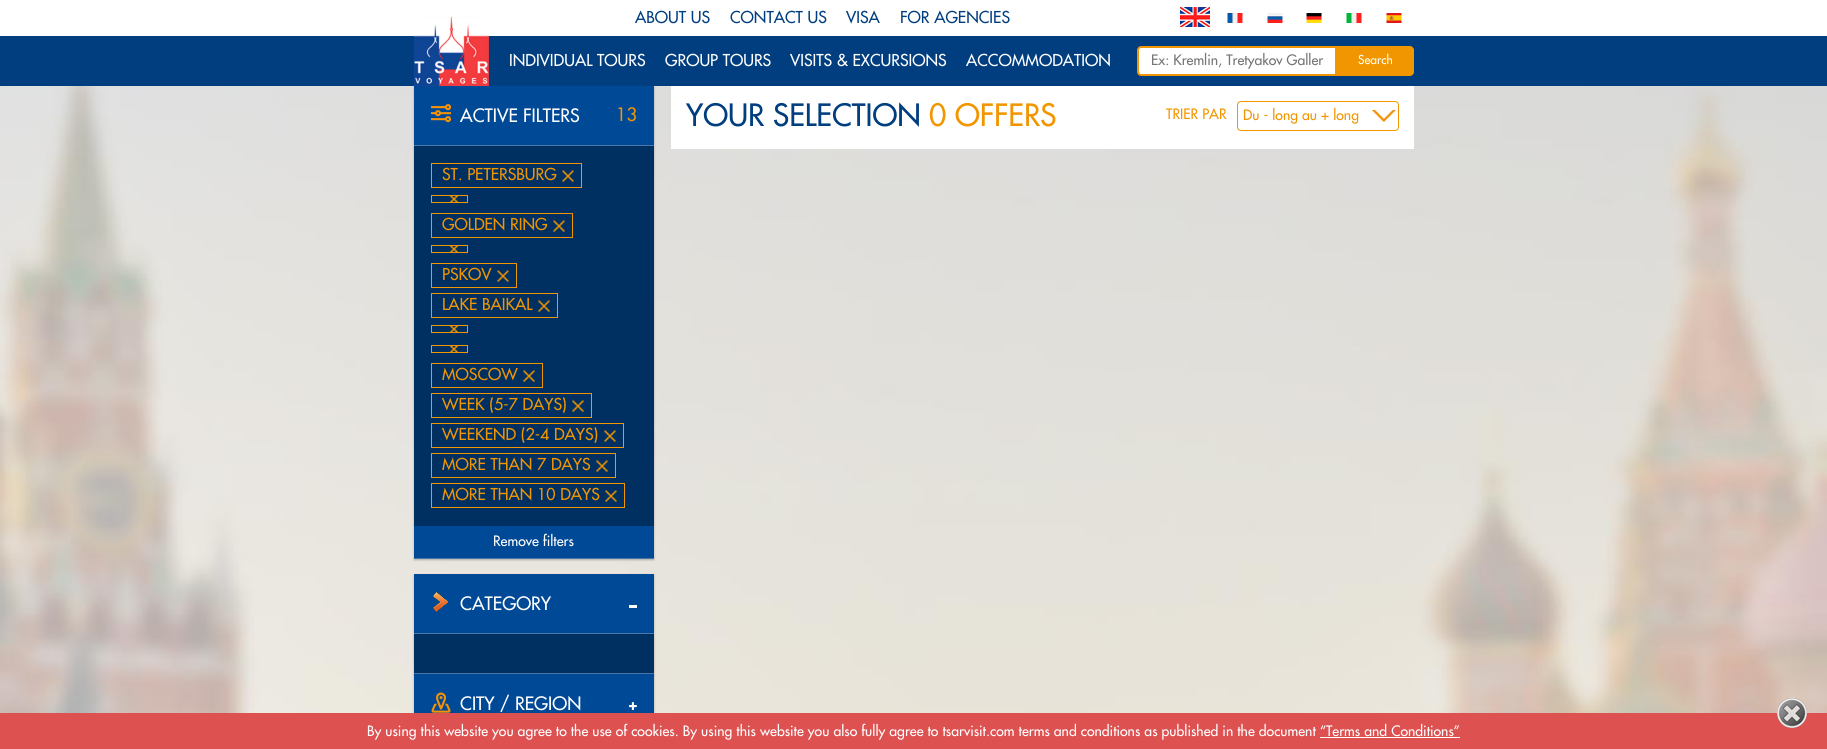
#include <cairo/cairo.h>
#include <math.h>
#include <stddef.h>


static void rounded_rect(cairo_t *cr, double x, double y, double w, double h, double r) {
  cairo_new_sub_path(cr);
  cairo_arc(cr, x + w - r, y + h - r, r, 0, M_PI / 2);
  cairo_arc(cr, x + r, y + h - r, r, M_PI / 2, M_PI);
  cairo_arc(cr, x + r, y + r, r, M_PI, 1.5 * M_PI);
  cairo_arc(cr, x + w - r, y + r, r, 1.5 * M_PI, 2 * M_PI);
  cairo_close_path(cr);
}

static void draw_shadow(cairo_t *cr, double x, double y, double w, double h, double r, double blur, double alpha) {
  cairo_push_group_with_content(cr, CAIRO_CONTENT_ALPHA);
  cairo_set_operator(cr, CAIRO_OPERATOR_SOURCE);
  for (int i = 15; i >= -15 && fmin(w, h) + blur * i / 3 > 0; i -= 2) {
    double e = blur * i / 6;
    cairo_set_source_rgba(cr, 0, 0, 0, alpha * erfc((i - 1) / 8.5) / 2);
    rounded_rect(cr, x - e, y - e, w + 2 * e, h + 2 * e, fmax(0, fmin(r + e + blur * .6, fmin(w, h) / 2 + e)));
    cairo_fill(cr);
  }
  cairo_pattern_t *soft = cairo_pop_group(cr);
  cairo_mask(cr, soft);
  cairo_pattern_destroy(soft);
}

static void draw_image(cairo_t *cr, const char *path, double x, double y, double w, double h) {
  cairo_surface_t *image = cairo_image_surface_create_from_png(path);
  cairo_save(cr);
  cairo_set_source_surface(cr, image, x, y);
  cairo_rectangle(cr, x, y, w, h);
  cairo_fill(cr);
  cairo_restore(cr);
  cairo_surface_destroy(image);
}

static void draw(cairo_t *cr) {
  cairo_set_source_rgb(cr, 1, 1, 1);
  cairo_paint(cr);
  draw_image(cr, "images/1.png", 0, 86, 1827, 627);
  cairo_set_source_rgb(cr, 0, 0, 0);
  draw_shadow(cr, 414, 87, 240, 473, 0, 1, 0.25);
  cairo_set_source_rgb(cr, 1 / 255.0, 62 / 255.0, 127 / 255.0);
  cairo_rectangle(cr, 0, 36, 1827, 50);
  cairo_fill(cr);
  draw_image(cr, "images/2.png", 413, 16, 76, 70);
  draw_image(cr, "images/3.png", 1180, 7, 30, 20);
  draw_image(cr, "images/4.png", 1227, 13, 16, 10);
  draw_image(cr, "images/5.png", 1267, 13, 16, 10);
  draw_image(cr, "images/6.png", 1306, 13, 16, 10);
  draw_image(cr, "images/7.png", 1346, 13, 16, 10);
  draw_image(cr, "images/8.png", 1386, 13, 16, 10);
  cairo_set_source_rgb(cr, 1, 1, 1);
  cairo_new_path(cr);
  cairo_move_to(cr, 1141, 47);
  cairo_line_to(cr, 1336, 47);
  cairo_line_to(cr, 1336, 75);
  cairo_line_to(cr, 1141, 75);
  cairo_curve_to(cr, 1139.5, 75, 1138, 73.5, 1138, 72);
  cairo_line_to(cr, 1138, 50);
  cairo_curve_to(cr, 1138, 48.5, 1139.5, 47, 1141, 47);
  cairo_close_path(cr);
  cairo_fill_preserve(cr);
  cairo_set_source_rgb(cr, 241 / 255.0, 150 / 255.0, 0);
  cairo_stroke(cr);
  cairo_new_path(cr);
  cairo_move_to(cr, 1337, 46);
  cairo_line_to(cr, 1410, 46);
  cairo_curve_to(cr, 1412, 46, 1414, 48, 1414, 50);
  cairo_line_to(cr, 1414, 72);
  cairo_curve_to(cr, 1414, 74, 1412, 76, 1410, 76);
  cairo_line_to(cr, 1337, 76);
  cairo_close_path(cr);
  cairo_fill(cr);
  cairo_set_source_rgb(cr, 0, 47 / 255.0, 98 / 255.0);
  cairo_rectangle(cr, 414, 146, 240, 380);
  cairo_fill(cr);
  cairo_set_source_rgb(cr, 76 / 255.0, 117 / 255.0, 168 / 255.0);
  cairo_rectangle(cr, 414, 558, 240, 1);
  cairo_fill(cr);
  cairo_set_source_rgb(cr, 0, 73 / 255.0, 150 / 255.0);
  cairo_rectangle(cr, 414, 86, 240, 59);
  cairo_fill(cr);
  cairo_set_source_rgb(cr, 76 / 255.0, 117 / 255.0, 168 / 255.0);
  cairo_rectangle(cr, 414, 145, 240, 1);
  cairo_fill(cr);
  draw_image(cr, "images/9.png", 431, 104, 20, 19);
  draw_image(cr, "images/10.png", 562, 170, 12, 12);
  cairo_rectangle(cr, 431.5, 163.5, 150, 24);
  cairo_set_source_rgb(cr, 241 / 255.0, 150 / 255.0, 0);
  cairo_set_line_width(cr, 1);
  cairo_stroke(cr);
  draw_image(cr, "images/11.png", 449, 196, 10, 6);
  cairo_rectangle(cr, 431.5, 195.5, 36, 7);
  cairo_stroke(cr);
  draw_image(cr, "images/10.png", 553, 220, 12, 12);
  cairo_rectangle(cr, 431.5, 213.5, 141, 24);
  cairo_stroke(cr);
  draw_image(cr, "images/11.png", 449, 246, 10, 6);
  cairo_rectangle(cr, 431.5, 245.5, 36, 7);
  cairo_stroke(cr);
  draw_image(cr, "images/10.png", 497, 270, 12, 12);
  cairo_rectangle(cr, 431.5, 263.5, 85, 24);
  cairo_stroke(cr);
  draw_image(cr, "images/10.png", 538, 300, 12, 12);
  cairo_rectangle(cr, 431.5, 293.5, 126, 24);
  cairo_stroke(cr);
  draw_image(cr, "images/11.png", 449, 326, 10, 6);
  cairo_rectangle(cr, 431.5, 325.5, 36, 7);
  cairo_stroke(cr);
  draw_image(cr, "images/11.png", 449, 346, 10, 6);
  cairo_rectangle(cr, 431.5, 345.5, 36, 7);
  cairo_stroke(cr);
  draw_image(cr, "images/10.png", 523, 370, 12, 12);
  cairo_rectangle(cr, 431.5, 363.5, 111, 24);
  cairo_stroke(cr);
  draw_image(cr, "images/10.png", 572, 400, 12, 12);
  cairo_rectangle(cr, 431.5, 393.5, 160, 24);
  cairo_stroke(cr);
  draw_image(cr, "images/10.png", 604, 430, 12, 12);
  cairo_rectangle(cr, 431.5, 423.5, 192, 24);
  cairo_stroke(cr);
  draw_image(cr, "images/10.png", 596, 460, 12, 12);
  cairo_rectangle(cr, 431.5, 453.5, 184, 24);
  cairo_stroke(cr);
  draw_image(cr, "images/10.png", 605, 490, 12, 12);
  cairo_rectangle(cr, 431.5, 483.5, 193, 24);
  cairo_stroke(cr);
  cairo_set_source_rgb(cr, 0, 73 / 255.0, 150 / 255.0);
  cairo_rectangle(cr, 414, 526, 240, 32);
  cairo_fill(cr);
  cairo_set_source_rgb(cr, 0, 0, 0);
  draw_shadow(cr, 414, 575, 240, 100, 0, 1, 0.25);
  cairo_set_source_rgb(cr, 0, 47 / 255.0, 98 / 255.0);
  cairo_rectangle(cr, 414, 634, 240, 39);
  cairo_fill(cr);
  cairo_set_source_rgb(cr, 76 / 255.0, 117 / 255.0, 168 / 255.0);
  cairo_rectangle(cr, 414, 673, 240, 1);
  cairo_fill(cr);
  cairo_set_source_rgb(cr, 0, 73 / 255.0, 150 / 255.0);
  cairo_rectangle(cr, 414, 574, 240, 59);
  cairo_fill(cr);
  cairo_set_source_rgb(cr, 76 / 255.0, 117 / 255.0, 168 / 255.0);
  cairo_rectangle(cr, 414, 633, 240, 1);
  cairo_fill(cr);
  draw_image(cr, "images/12.png", 433, 592, 15, 20);
  cairo_set_source_rgb(cr, 1, 1, 1);
  cairo_rectangle(cr, 629, 605, 8, 3);
  cairo_fill(cr);
  cairo_set_source_rgb(cr, 0, 0, 0);
  draw_shadow(cr, 414, 675, 240, 61, 0, 1, 0.25);
  cairo_set_source_rgb(cr, 0, 73 / 255.0, 150 / 255.0);
  cairo_rectangle(cr, 414, 674, 240, 39);
  cairo_fill(cr);
  draw_image(cr, "images/13.png", 431, 692, 20, 21);
  draw_image(cr, "images/14.png", 629, 702, 8, 8);
  cairo_set_source_rgb(cr, 1, 1, 1);
  cairo_rectangle(cr, 671, 86, 743, 63);
  cairo_fill(cr);
  rounded_rect(cr, 1237.5, 101.5, 161, 29, 3.5);
  cairo_set_source_rgb(cr, 241 / 255.0, 150 / 255.0, 0);
  cairo_stroke(cr);
  draw_image(cr, "images/15.png", 1371, 110, 26, 12);
  cairo_set_source_rgb(cr, 221 / 255.0, 81 / 255.0, 81 / 255.0);
  cairo_rectangle(cr, 0, 713, 1827, 36);
  cairo_fill(cr);
  draw_image(cr, "images/16.png", 1777, 698, 30, 30);
  cairo_set_source_rgb(cr, 1, 1, 1);
  cairo_rectangle(cr, 1320, 737, 140, 1);
  cairo_fill(cr);
  cairo_select_font_face(cr, "Futura Medium", CAIRO_FONT_SLANT_NORMAL, CAIRO_FONT_WEIGHT_NORMAL);
  cairo_set_font_size(cr, 16);
  cairo_set_source_rgb(cr, 1 / 255.0, 62 / 255.0, 127 / 255.0);
  cairo_move_to(cr, 635, 23);
  cairo_show_text(cr, "ABOUT US");
  cairo_move_to(cr, 730, 23);
  cairo_show_text(cr, "CONTACT US");
  cairo_move_to(cr, 846, 23);
  cairo_show_text(cr, "VISA");
  cairo_move_to(cr, 900, 23);
  cairo_show_text(cr, "FOR AGENCIES");
  cairo_set_source_rgb(cr, 1, 1, 1);
  cairo_move_to(cr, 509, 66);
  cairo_show_text(cr, "INDIVIDUAL TOURS");
  cairo_move_to(cr, 665, 66);
  cairo_show_text(cr, "GROUP TOURS");
  cairo_move_to(cr, 790, 66);
  cairo_show_text(cr, "VISITS & EXCURSIONS");
  cairo_move_to(cr, 966, 66);
  cairo_show_text(cr, "ACCOMMODATION");
  cairo_set_font_size(cr, 14);
  cairo_set_source_rgb(cr, 117 / 255.0, 117 / 255.0, 117 / 255.0);
  cairo_move_to(cr, 1151, 65);
  cairo_show_text(cr, "Ex: Kremlin, Tretyakov Galler");
  cairo_set_font_size(cr, 12);
  cairo_set_source_rgb(cr, 1, 1, 1);
  cairo_move_to(cr, 1358, 64);
  cairo_show_text(cr, "Search");
  cairo_set_font_size(cr, 18);
  cairo_move_to(cr, 460, 122);
  cairo_show_text(cr, "ACTIVE FILTERS");
  cairo_set_source_rgb(cr, 241 / 255.0, 150 / 255.0, 0);
  cairo_move_to(cr, 616, 121);
  cairo_show_text(cr, "13");
  cairo_set_font_size(cr, 16);
  cairo_move_to(cr, 442, 180);
  cairo_show_text(cr, "ST. PETERSBURG");
  cairo_move_to(cr, 442, 230);
  cairo_show_text(cr, "GOLDEN RING");
  cairo_move_to(cr, 442, 280);
  cairo_show_text(cr, "PSKOV");
  cairo_move_to(cr, 442, 310);
  cairo_show_text(cr, "LAKE BAIKAL");
  cairo_move_to(cr, 442, 380);
  cairo_show_text(cr, "MOSCOW");
  cairo_move_to(cr, 442, 410);
  cairo_show_text(cr, "WEEK (5-7 DAYS)");
  cairo_move_to(cr, 442, 440);
  cairo_show_text(cr, "WEEKEND (2-4 DAYS)");
  cairo_move_to(cr, 442, 470);
  cairo_show_text(cr, "MORE THAN 7 DAYS");
  cairo_move_to(cr, 442, 500);
  cairo_show_text(cr, "MORE THAN 10 DAYS");
  cairo_set_font_size(cr, 14);
  cairo_set_source_rgb(cr, 1, 1, 1);
  cairo_move_to(cr, 493, 546);
  cairo_show_text(cr, "Remove filters");
  cairo_set_font_size(cr, 18);
  cairo_move_to(cr, 460, 610);
  cairo_show_text(cr, "CATEGORY");
  cairo_move_to(cr, 460, 710);
  cairo_show_text(cr, "CITY / REGION");
  cairo_set_font_size(cr, 30);
  cairo_set_source_rgb(cr, 1 / 255.0, 62 / 255.0, 127 / 255.0);
  cairo_move_to(cr, 686, 126);
  cairo_show_text(cr, "YOUR SELECTION");
  cairo_set_source_rgb(cr, 241 / 255.0, 150 / 255.0, 0);
  cairo_move_to(cr, 929, 126);
  cairo_show_text(cr, "0 OFFERS");
  cairo_set_font_size(cr, 14);
  cairo_move_to(cr, 1166, 119);
  cairo_show_text(cr, "TRIER PAR");
  cairo_move_to(cr, 1243, 120);
  cairo_show_text(cr, "Du - long au + long");
  cairo_set_source_rgb(cr, 1, 1, 1);
  cairo_move_to(cr, 367, 736);
  cairo_show_text(cr, "By using this website you agree to the use of cookies. By using this website you also fully agree to tsarvisit.com terms and conditions as published in the document “Terms and Conditions”");
}

int main(void) {
  cairo_surface_t *surface = cairo_image_surface_create(CAIRO_FORMAT_RGB24, 1827, 749);
  cairo_t *cr = cairo_create(surface);
  cairo_font_options_t *options = cairo_font_options_create();
  cairo_font_options_set_hint_metrics(options, CAIRO_HINT_METRICS_OFF);
  cairo_font_options_set_hint_style(options, CAIRO_HINT_STYLE_NONE);
  cairo_set_font_options(cr, options);
  cairo_set_miter_limit(cr, 4);
  draw(cr);
  cairo_surface_write_to_png(surface, "out.png");
  cairo_font_options_destroy(options);
  cairo_destroy(cr);
  cairo_surface_destroy(surface);
  return 0;
}
